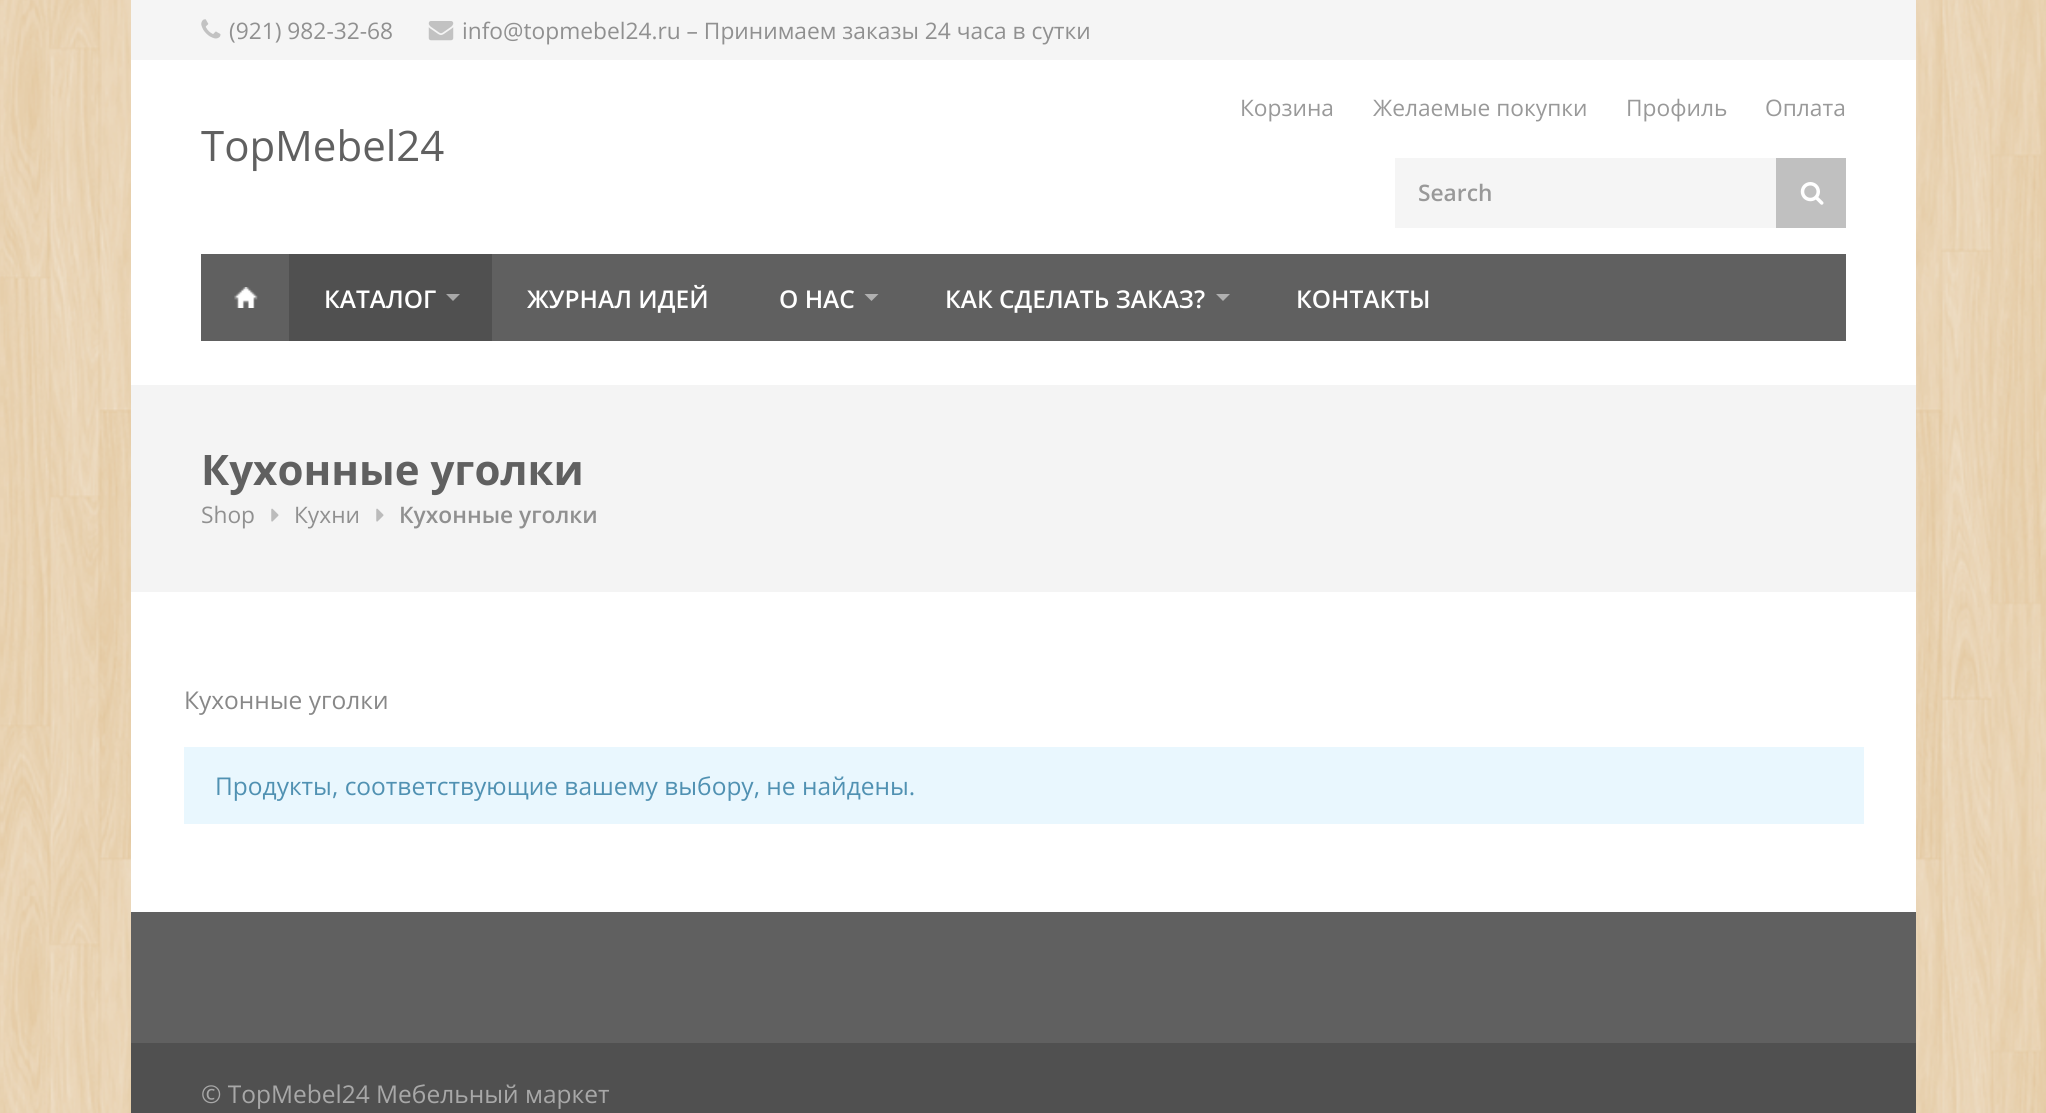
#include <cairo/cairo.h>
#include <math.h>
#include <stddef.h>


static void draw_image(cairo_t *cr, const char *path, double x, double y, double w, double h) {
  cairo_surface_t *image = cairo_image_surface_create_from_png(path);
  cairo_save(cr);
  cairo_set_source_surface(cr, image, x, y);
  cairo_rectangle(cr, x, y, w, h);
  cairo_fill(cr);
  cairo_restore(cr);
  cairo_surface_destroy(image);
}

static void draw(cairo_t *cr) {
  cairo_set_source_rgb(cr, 1, 1, 1);
  cairo_paint(cr);
  draw_image(cr, "images/1.png", 0, 0, 2046, 1113);
  cairo_set_source_rgb(cr, 1, 1, 1);
  cairo_rectangle(cr, 131, 60, 1785, 852);
  cairo_fill(cr);
  cairo_set_source_rgb(cr, 245 / 255.0, 245 / 255.0, 245 / 255.0);
  cairo_rectangle(cr, 131, 0, 1785, 60);
  cairo_fill(cr);
  draw_image(cr, "images/2.png", 201, 19, 20, 20);
  draw_image(cr, "images/3.png", 428, 21, 26, 20);
  cairo_rectangle(cr, 1395, 158, 381, 70);
  cairo_fill(cr);
  cairo_set_source_rgb(cr, 192 / 255.0, 192 / 255.0, 192 / 255.0);
  cairo_rectangle(cr, 1776, 158, 70, 70);
  cairo_fill(cr);
  draw_image(cr, "images/4.png", 1800, 182, 24, 23);
  cairo_set_source_rgb(cr, 96 / 255.0, 96 / 255.0, 96 / 255.0);
  cairo_rectangle(cr, 201, 254, 1645, 87);
  cairo_fill(cr);
  draw_image(cr, "images/5.png", 234, 287, 24, 21);
  cairo_set_source_rgb(cr, 80 / 255.0, 80 / 255.0, 80 / 255.0);
  cairo_rectangle(cr, 289, 254, 203, 87);
  cairo_fill(cr);
  cairo_set_source_rgb(cr, 168 / 255.0, 168 / 255.0, 168 / 255.0);
  cairo_new_path(cr);
  cairo_move_to(cr, 446, 294);
  cairo_line_to(cr, 460, 294);
  cairo_line_to(cr, 453, 301);
  cairo_close_path(cr);
  cairo_fill(cr);
  cairo_set_source_rgb(cr, 176 / 255.0, 176 / 255.0, 176 / 255.0);
  cairo_new_path(cr);
  cairo_move_to(cr, 864.5, 294);
  cairo_line_to(cr, 878.5, 294);
  cairo_line_to(cr, 871.5, 301);
  cairo_close_path(cr);
  cairo_fill(cr);
  cairo_new_path(cr);
  cairo_move_to(cr, 1216, 294);
  cairo_line_to(cr, 1230, 294);
  cairo_line_to(cr, 1223, 301);
  cairo_close_path(cr);
  cairo_fill(cr);
  cairo_set_source_rgb(cr, 244 / 255.0, 244 / 255.0, 244 / 255.0);
  cairo_rectangle(cr, 131, 385, 1785, 207);
  cairo_fill(cr);
  draw_image(cr, "images/6.png", 271, 508, 8, 14);
  draw_image(cr, "images/6.png", 376, 508, 8, 14);
  cairo_set_source_rgb(cr, 233 / 255.0, 247 / 255.0, 254 / 255.0);
  cairo_rectangle(cr, 184, 747, 1680, 77);
  cairo_fill(cr);
  cairo_set_source_rgb(cr, 96 / 255.0, 96 / 255.0, 96 / 255.0);
  cairo_rectangle(cr, 131, 912, 1785, 131);
  cairo_fill(cr);
  cairo_set_source_rgb(cr, 80 / 255.0, 80 / 255.0, 80 / 255.0);
  cairo_rectangle(cr, 131, 1043, 1785, 70);
  cairo_fill(cr);
  cairo_select_font_face(cr, "Open Sans", CAIRO_FONT_SLANT_NORMAL, CAIRO_FONT_WEIGHT_NORMAL);
  cairo_set_font_size(cr, 22.75);
  cairo_set_source_rgb(cr, 144 / 255.0, 144 / 255.0, 144 / 255.0);
  cairo_move_to(cr, 229, 39);
  cairo_show_text(cr, "(921) 982-32-68");
  cairo_move_to(cr, 462, 39);
  cairo_show_text(cr, "info@topmebel24.ru – Принимаем заказы 24 часа в сутки");
  cairo_set_source_rgb(cr, 153 / 255.0, 153 / 255.0, 153 / 255.0);
  cairo_move_to(cr, 1240, 116);
  cairo_show_text(cr, "Корзина");
  cairo_move_to(cr, 1373, 116);
  cairo_show_text(cr, "Желаемые покупки");
  cairo_move_to(cr, 1626, 116);
  cairo_show_text(cr, "Профиль");
  cairo_move_to(cr, 1765, 116);
  cairo_show_text(cr, "Оплата");
  cairo_set_font_size(cr, 42);
  cairo_set_source_rgb(cr, 96 / 255.0, 96 / 255.0, 96 / 255.0);
  cairo_move_to(cr, 201, 161);
  cairo_show_text(cr, "TopMebel24");
  cairo_select_font_face(cr, "Open Sans SemiBold", CAIRO_FONT_SLANT_NORMAL, CAIRO_FONT_WEIGHT_NORMAL);
  cairo_set_font_size(cr, 22.75);
  cairo_set_source_rgb(cr, 153 / 255.0, 153 / 255.0, 153 / 255.0);
  cairo_move_to(cr, 1418, 201);
  cairo_show_text(cr, "Search");
  cairo_set_font_size(cr, 24.5);
  cairo_set_source_rgb(cr, 1, 1, 1);
  cairo_move_to(cr, 324, 308);
  cairo_show_text(cr, "КАТАЛОГ");
  cairo_move_to(cr, 527, 308);
  cairo_show_text(cr, "ЖУРНАЛ ИДЕЙ");
  cairo_move_to(cr, 779, 308);
  cairo_show_text(cr, "О НАС");
  cairo_move_to(cr, 945, 308);
  cairo_show_text(cr, "КАК СДЕЛАТЬ ЗАКАЗ?");
  cairo_move_to(cr, 1296, 308);
  cairo_show_text(cr, "КОНТАКТЫ");
  cairo_select_font_face(cr, "Open Sans", CAIRO_FONT_SLANT_NORMAL, CAIRO_FONT_WEIGHT_BOLD);
  cairo_set_font_size(cr, 42);
  cairo_set_source_rgb(cr, 96 / 255.0, 96 / 255.0, 96 / 255.0);
  cairo_move_to(cr, 201, 485);
  cairo_show_text(cr, "Кухонные уголки");
  cairo_select_font_face(cr, "Open Sans", CAIRO_FONT_SLANT_NORMAL, CAIRO_FONT_WEIGHT_NORMAL);
  cairo_set_font_size(cr, 22.75);
  cairo_set_source_rgb(cr, 144 / 255.0, 144 / 255.0, 144 / 255.0);
  cairo_move_to(cr, 201, 523);
  cairo_show_text(cr, "Shop");
  cairo_move_to(cr, 294, 523);
  cairo_show_text(cr, "Кухни");
  cairo_select_font_face(cr, "Open Sans SemiBold", CAIRO_FONT_SLANT_NORMAL, CAIRO_FONT_WEIGHT_NORMAL);
  cairo_move_to(cr, 399, 523);
  cairo_show_text(cr, "Кухонные уголки");
  cairo_select_font_face(cr, "Open Sans", CAIRO_FONT_SLANT_NORMAL, CAIRO_FONT_WEIGHT_NORMAL);
  cairo_set_font_size(cr, 24.5);
  cairo_set_source_rgb(cr, 136 / 255.0, 136 / 255.0, 136 / 255.0);
  cairo_move_to(cr, 184, 709);
  cairo_show_text(cr, "Кухонные уголки");
  cairo_set_source_rgb(cr, 80 / 255.0, 145 / 255.0, 178 / 255.0);
  cairo_move_to(cr, 215, 795);
  cairo_show_text(cr, "Продукты, соответствующие вашему выбору, не найдены.");
  cairo_set_source_rgb(cr, 168 / 255.0, 168 / 255.0, 168 / 255.0);
  cairo_move_to(cr, 201, 1103);
  cairo_show_text(cr, "© TopMebel24 Мебельный маркет");
}

int main(void) {
  cairo_surface_t *surface = cairo_image_surface_create(CAIRO_FORMAT_RGB24, 2046, 1113);
  cairo_t *cr = cairo_create(surface);
  cairo_font_options_t *options = cairo_font_options_create();
  cairo_font_options_set_hint_metrics(options, CAIRO_HINT_METRICS_OFF);
  cairo_font_options_set_hint_style(options, CAIRO_HINT_STYLE_NONE);
  cairo_set_font_options(cr, options);
  cairo_set_miter_limit(cr, 4);
  draw(cr);
  cairo_surface_write_to_png(surface, "out.png");
  cairo_font_options_destroy(options);
  cairo_destroy(cr);
  cairo_surface_destroy(surface);
  return 0;
}
